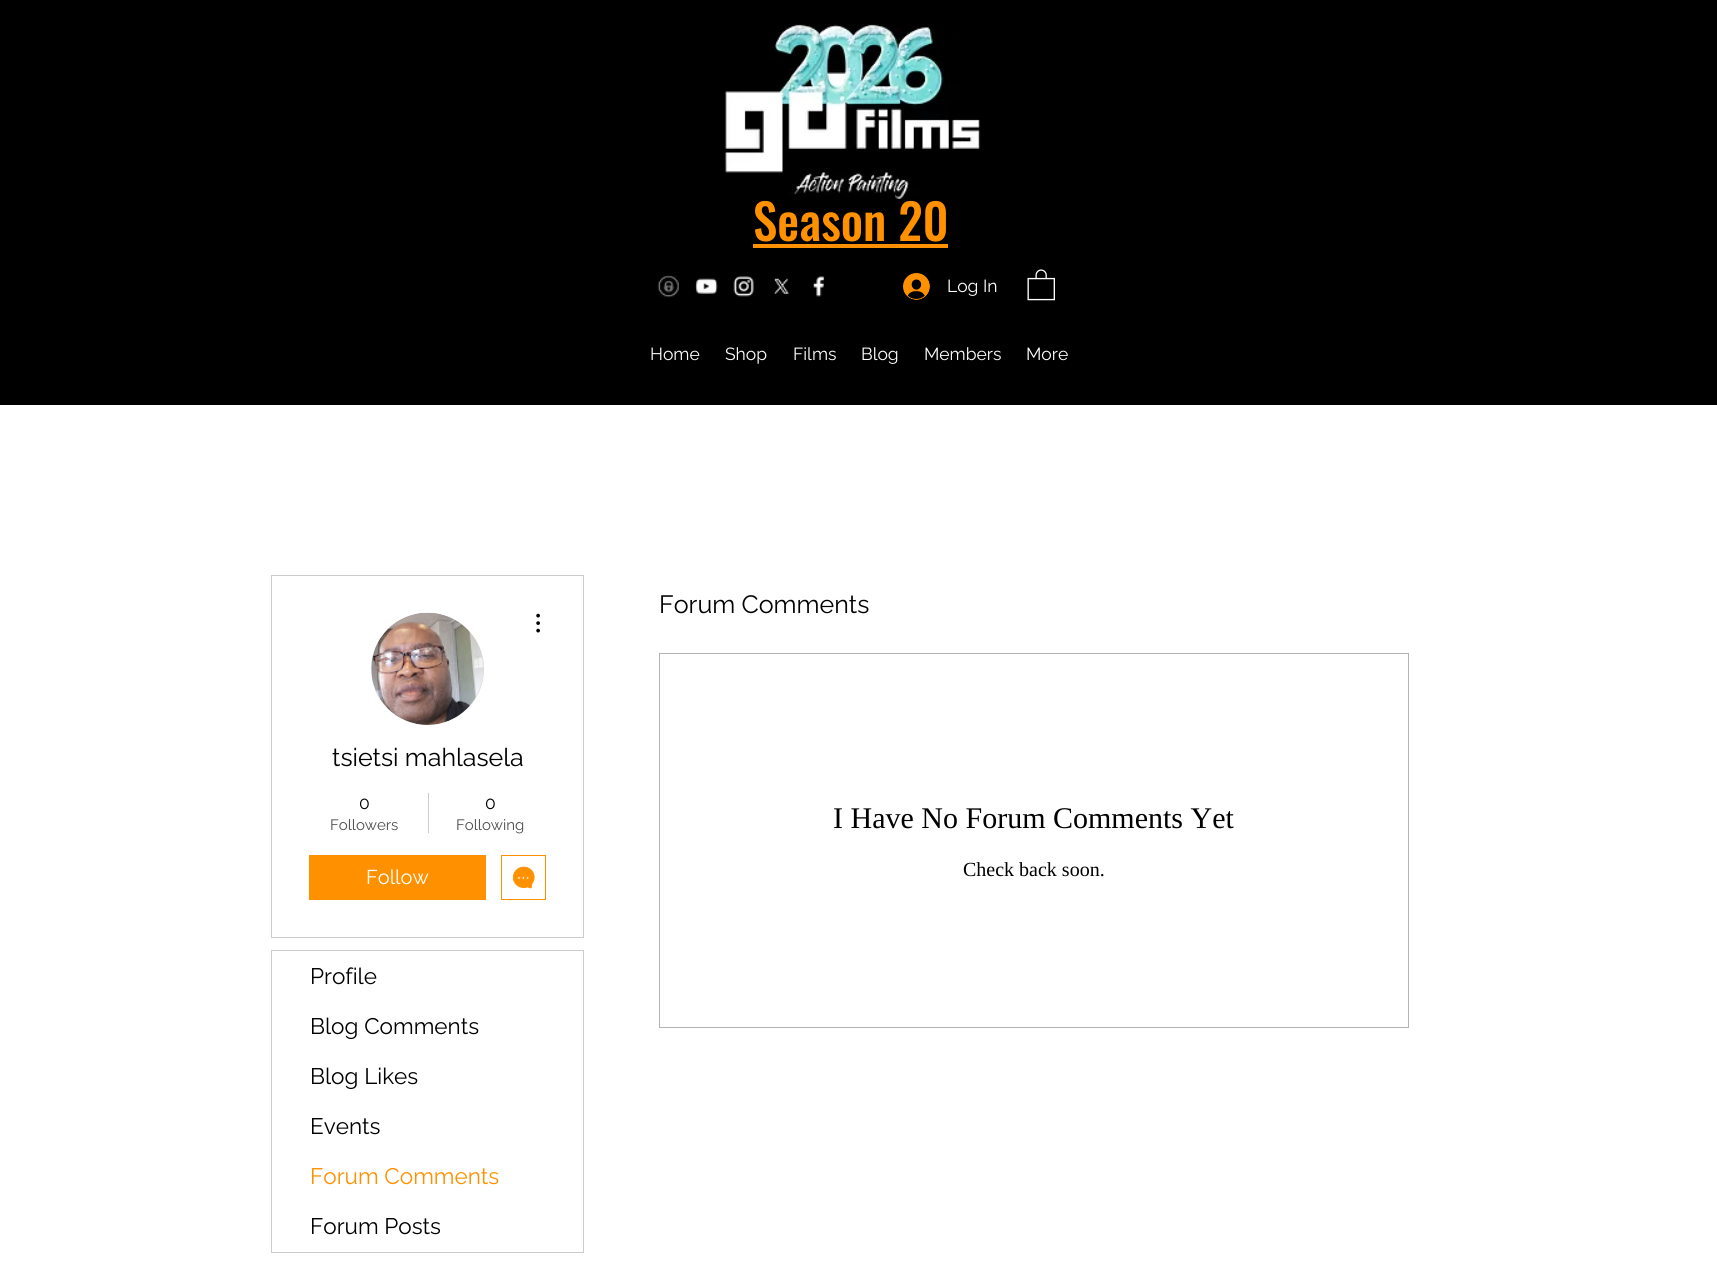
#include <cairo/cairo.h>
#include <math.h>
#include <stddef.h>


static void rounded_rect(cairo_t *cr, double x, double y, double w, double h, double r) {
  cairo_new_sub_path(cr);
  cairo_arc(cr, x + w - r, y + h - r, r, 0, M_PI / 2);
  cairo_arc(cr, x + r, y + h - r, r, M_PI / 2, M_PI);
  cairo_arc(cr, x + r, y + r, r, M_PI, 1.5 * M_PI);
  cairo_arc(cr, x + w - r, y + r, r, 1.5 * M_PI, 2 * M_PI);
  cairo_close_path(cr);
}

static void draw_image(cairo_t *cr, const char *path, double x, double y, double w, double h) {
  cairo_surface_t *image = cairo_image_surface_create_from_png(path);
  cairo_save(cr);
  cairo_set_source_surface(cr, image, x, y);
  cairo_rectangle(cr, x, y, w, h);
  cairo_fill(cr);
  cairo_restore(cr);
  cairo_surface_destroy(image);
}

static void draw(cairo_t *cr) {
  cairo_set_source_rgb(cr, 1, 1, 1);
  cairo_paint(cr);
  cairo_set_source_rgb(cr, 0, 0, 0);
  cairo_rectangle(cr, 0, 0, 1717, 405);
  cairo_fill(cr);
  draw_image(cr, "images/1.png", 724, 24, 257, 175);
  cairo_set_source_rgb(cr, 1, 145 / 255.0, 1 / 255.0);
  cairo_rectangle(cr, 753, 244, 195, 4);
  cairo_fill(cr);
  draw_image(cr, "images/2.png", 657, 275, 23, 24);
  draw_image(cr, "images/3.png", 695, 278, 23, 16);
  draw_image(cr, "images/4.png", 733, 276, 21, 21);
  draw_image(cr, "images/5.png", 773, 278, 16, 16);
  draw_image(cr, "images/6.png", 813, 276, 12, 21);
  draw_image(cr, "images/7.png", 903, 273, 27, 27);
  draw_image(cr, "images/8.png", 1027, 269, 28, 32);
  cairo_rectangle(cr, 271.5, 575.5, 312, 362);
  cairo_set_source_rgb(cr, 204 / 255.0, 204 / 255.0, 204 / 255.0);
  cairo_set_line_width(cr, 1);
  cairo_stroke(cr);
  cairo_set_source_rgb(cr, 216 / 255.0, 216 / 255.0, 216 / 255.0);
  rounded_rect(cr, 371, 613, 113, 112, 56);
  cairo_fill(cr);
  draw_image(cr, "images/9.png", 371, 612, 113, 113);
  draw_image(cr, "images/10.png", 536, 613, 4, 20);
  cairo_set_source_rgb(cr, 204 / 255.0, 204 / 255.0, 204 / 255.0);
  cairo_rectangle(cr, 428, 793, 1, 40);
  cairo_fill(cr);
  cairo_set_source_rgb(cr, 1, 145 / 255.0, 1 / 255.0);
  cairo_rectangle(cr, 309, 855, 177, 45);
  cairo_fill(cr);
  cairo_rectangle(cr, 501.5, 855.5, 44, 44);
  cairo_stroke(cr);
  draw_image(cr, "images/11.png", 513, 866, 22, 23);
  cairo_rectangle(cr, 271.5, 950.5, 312, 302);
  cairo_set_source_rgb(cr, 204 / 255.0, 204 / 255.0, 204 / 255.0);
  cairo_stroke(cr);
  cairo_rectangle(cr, 659.5, 653.5, 749, 374);
  cairo_set_source_rgb(cr, 179 / 255.0, 179 / 255.0, 179 / 255.0);
  cairo_stroke(cr);
  cairo_select_font_face(cr, "Oswald Medium", CAIRO_FONT_SLANT_NORMAL, CAIRO_FONT_WEIGHT_NORMAL);
  cairo_set_font_size(cr, 49);
  cairo_set_source_rgb(cr, 1, 145 / 255.0, 1 / 255.0);
  cairo_move_to(cr, 753, 241);
  cairo_show_text(cr, "Season 20");
  cairo_select_font_face(cr, "Raleway", CAIRO_FONT_SLANT_NORMAL, CAIRO_FONT_WEIGHT_NORMAL);
  cairo_set_font_size(cr, 17.5);
  cairo_set_source_rgb(cr, 1, 1, 1);
  cairo_move_to(cr, 947, 292);
  cairo_show_text(cr, "Log In");
  cairo_move_to(cr, 650, 360);
  cairo_show_text(cr, "Home");
  cairo_move_to(cr, 725, 360);
  cairo_show_text(cr, "Shop");
  cairo_move_to(cr, 793, 360);
  cairo_show_text(cr, "Films");
  cairo_move_to(cr, 861, 360);
  cairo_show_text(cr, "Blog");
  cairo_move_to(cr, 924, 360);
  cairo_show_text(cr, "Members");
  cairo_move_to(cr, 1026, 360);
  cairo_show_text(cr, "More");
  cairo_set_font_size(cr, 25);
  cairo_set_source_rgb(cr, 0, 0, 0);
  cairo_move_to(cr, 332, 766);
  cairo_show_text(cr, "tsietsi mahlasela");
  cairo_set_font_size(cr, 17.5);
  cairo_move_to(cr, 359, 809);
  cairo_show_text(cr, "0");
  cairo_set_font_size(cr, 15);
  cairo_set_source_rgb(cr, 77 / 255.0, 77 / 255.0, 77 / 255.0);
  cairo_move_to(cr, 330, 830);
  cairo_show_text(cr, "Followers");
  cairo_set_font_size(cr, 17.5);
  cairo_set_source_rgb(cr, 0, 0, 0);
  cairo_move_to(cr, 485, 809);
  cairo_show_text(cr, "0");
  cairo_set_font_size(cr, 15);
  cairo_set_source_rgb(cr, 77 / 255.0, 77 / 255.0, 77 / 255.0);
  cairo_move_to(cr, 456, 830);
  cairo_show_text(cr, "Following");
  cairo_set_font_size(cr, 20);
  cairo_set_source_rgb(cr, 1, 1, 1);
  cairo_move_to(cr, 366, 884);
  cairo_show_text(cr, "Follow");
  cairo_set_font_size(cr, 22.5);
  cairo_set_source_rgb(cr, 0, 0, 0);
  cairo_move_to(cr, 310, 984);
  cairo_show_text(cr, "Profile");
  cairo_move_to(cr, 310, 1034);
  cairo_show_text(cr, "Blog Comments");
  cairo_move_to(cr, 310, 1084);
  cairo_show_text(cr, "Blog Likes");
  cairo_move_to(cr, 310, 1134);
  cairo_show_text(cr, "Events");
  cairo_set_source_rgb(cr, 1, 145 / 255.0, 1 / 255.0);
  cairo_move_to(cr, 310, 1184);
  cairo_show_text(cr, "Forum Comments");
  cairo_set_source_rgb(cr, 0, 0, 0);
  cairo_move_to(cr, 310, 1234);
  cairo_show_text(cr, "Forum Posts");
  cairo_set_font_size(cr, 25);
  cairo_move_to(cr, 659, 613);
  cairo_show_text(cr, "Forum Comments");
  cairo_select_font_face(cr, "Liberation Serif", CAIRO_FONT_SLANT_NORMAL, CAIRO_FONT_WEIGHT_NORMAL);
  cairo_set_font_size(cr, 30);
  cairo_move_to(cr, 833, 828);
  cairo_show_text(cr, "I Have No Forum Comments Yet");
  cairo_set_font_size(cr, 20);
  cairo_move_to(cr, 963, 876);
  cairo_show_text(cr, "Check back soon.");
}

int main(void) {
  cairo_surface_t *surface = cairo_image_surface_create(CAIRO_FORMAT_RGB24, 1717, 1277);
  cairo_t *cr = cairo_create(surface);
  cairo_font_options_t *options = cairo_font_options_create();
  cairo_font_options_set_hint_metrics(options, CAIRO_HINT_METRICS_OFF);
  cairo_font_options_set_hint_style(options, CAIRO_HINT_STYLE_NONE);
  cairo_set_font_options(cr, options);
  cairo_set_miter_limit(cr, 4);
  draw(cr);
  cairo_surface_write_to_png(surface, "out.png");
  cairo_font_options_destroy(options);
  cairo_destroy(cr);
  cairo_surface_destroy(surface);
  return 0;
}
